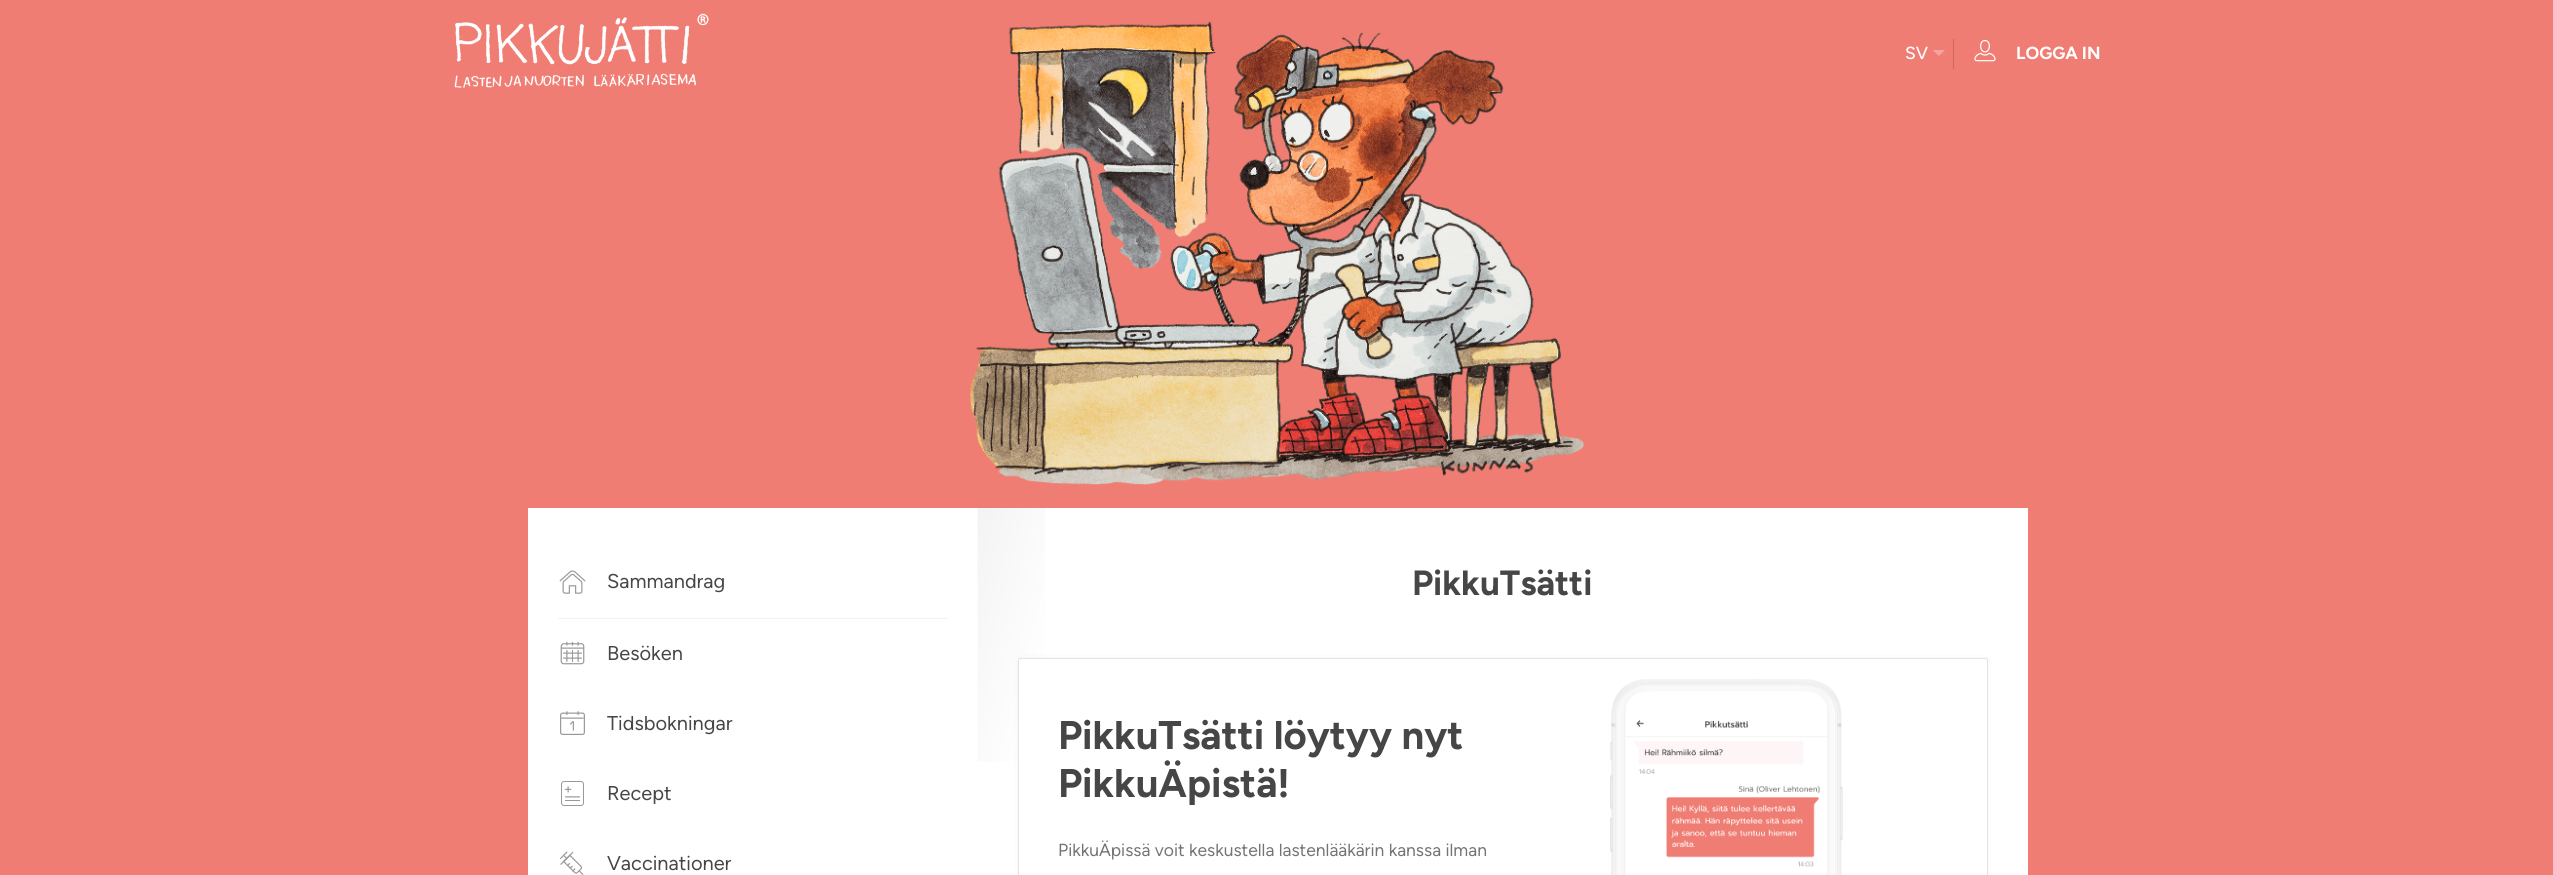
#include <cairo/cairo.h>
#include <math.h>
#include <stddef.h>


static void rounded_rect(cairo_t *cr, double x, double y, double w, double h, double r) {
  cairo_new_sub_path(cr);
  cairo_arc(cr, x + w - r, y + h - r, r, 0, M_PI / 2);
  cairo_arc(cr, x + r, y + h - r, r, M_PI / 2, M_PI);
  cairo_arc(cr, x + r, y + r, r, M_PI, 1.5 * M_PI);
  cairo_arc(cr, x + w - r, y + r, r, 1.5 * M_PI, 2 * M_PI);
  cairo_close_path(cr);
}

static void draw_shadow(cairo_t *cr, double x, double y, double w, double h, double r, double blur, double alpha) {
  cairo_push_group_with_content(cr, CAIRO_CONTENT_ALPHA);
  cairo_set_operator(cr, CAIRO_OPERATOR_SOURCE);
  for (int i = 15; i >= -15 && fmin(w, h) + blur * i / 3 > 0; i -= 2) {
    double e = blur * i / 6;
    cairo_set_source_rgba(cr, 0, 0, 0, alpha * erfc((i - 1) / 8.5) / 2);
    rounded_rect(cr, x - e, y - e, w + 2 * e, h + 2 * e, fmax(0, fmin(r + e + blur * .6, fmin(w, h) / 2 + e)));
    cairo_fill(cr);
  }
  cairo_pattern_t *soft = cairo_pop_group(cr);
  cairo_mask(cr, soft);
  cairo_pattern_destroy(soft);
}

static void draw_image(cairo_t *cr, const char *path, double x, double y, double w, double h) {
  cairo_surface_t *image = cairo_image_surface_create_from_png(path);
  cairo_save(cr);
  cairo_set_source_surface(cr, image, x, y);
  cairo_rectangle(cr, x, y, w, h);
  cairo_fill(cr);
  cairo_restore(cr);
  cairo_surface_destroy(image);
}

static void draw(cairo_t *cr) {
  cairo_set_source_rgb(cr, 240 / 255.0, 125 / 255.0, 115 / 255.0);
  cairo_paint(cr);
  draw_image(cr, "images/1.png", 970, 21, 615, 464);
  draw_image(cr, "images/2.png", 454, 13, 255, 75);
  cairo_set_source_rgb(cr, 244 / 255.0, 164 / 255.0, 157 / 255.0);
  cairo_new_path(cr);
  cairo_move_to(cr, 1932.5, 50);
  cairo_line_to(cr, 1945, 50);
  cairo_line_to(cr, 1939, 56);
  cairo_close_path(cr);
  cairo_fill(cr);
  cairo_set_source_rgb(cr, 204 / 255.0, 106 / 255.0, 98 / 255.0);
  cairo_rectangle(cr, 1953, 39, 1, 30);
  cairo_fill(cr);
  draw_image(cr, "images/3.png", 1974, 40, 22, 22);
  cairo_set_source_rgb(cr, 1, 1, 1);
  cairo_rectangle(cr, 528, 508, 1500, 367);
  cairo_fill(cr);
  draw_image(cr, "images/4.png", 559, 570, 27, 24);
  cairo_set_source_rgb(cr, 243 / 255.0, 243 / 255.0, 243 / 255.0);
  cairo_rectangle(cr, 558, 618, 390, 1);
  cairo_fill(cr);
  draw_image(cr, "images/5.png", 560, 641, 25, 24);
  draw_image(cr, "images/6.png", 560, 711, 25, 24);
  draw_image(cr, "images/7.png", 561, 781, 23, 25);
  draw_image(cr, "images/8.png", 559, 851, 25, 24);
  draw_image(cr, "images/9.png", 977, 507, 68, 255);
  cairo_set_source_rgb(cr, 0, 0, 0);
  draw_shadow(cr, 1018, 658, 970, 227, 2.5, 2.5, 0.05);
  cairo_set_source_rgb(cr, 1, 1, 1);
  rounded_rect(cr, 1018.5, 658.5, 969, 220, 2);
  cairo_fill_preserve(cr);
  cairo_set_source_rgb(cr, 227 / 255.0, 227 / 255.0, 227 / 255.0);
  cairo_set_line_width(cr, 1);
  cairo_stroke(cr);
  draw_image(cr, "images/10.png", 1610, 679, 233, 196);
  cairo_select_font_face(cr, "Figtree Medium", CAIRO_FONT_SLANT_NORMAL, CAIRO_FONT_WEIGHT_NORMAL);
  cairo_set_font_size(cr, 17.5);
  cairo_set_source_rgb(cr, 1, 1, 1);
  cairo_move_to(cr, 1905, 59);
  cairo_show_text(cr, "SV");
  cairo_select_font_face(cr, "Figtree", CAIRO_FONT_SLANT_NORMAL, CAIRO_FONT_WEIGHT_BOLD);
  cairo_move_to(cr, 2016, 59);
  cairo_show_text(cr, "LOGGA IN");
  cairo_select_font_face(cr, "Figtree", CAIRO_FONT_SLANT_NORMAL, CAIRO_FONT_WEIGHT_NORMAL);
  cairo_set_font_size(cr, 20);
  cairo_set_source_rgb(cr, 70 / 255.0, 70 / 255.0, 70 / 255.0);
  cairo_move_to(cr, 607, 588);
  cairo_show_text(cr, "Sammandrag");
  cairo_move_to(cr, 607, 660);
  cairo_show_text(cr, "Besöken");
  cairo_move_to(cr, 607, 730);
  cairo_show_text(cr, "Tidsbokningar");
  cairo_move_to(cr, 607, 800);
  cairo_show_text(cr, "Recept");
  cairo_move_to(cr, 607, 870);
  cairo_show_text(cr, "Vaccinationer");
  cairo_select_font_face(cr, "Figtree", CAIRO_FONT_SLANT_NORMAL, CAIRO_FONT_WEIGHT_BOLD);
  cairo_set_font_size(cr, 35);
  cairo_move_to(cr, 1412, 595);
  cairo_show_text(cr, "PikkuTsätti");
  cairo_set_font_size(cr, 40);
  cairo_move_to(cr, 1058, 749);
  cairo_show_text(cr, "PikkuTsätti löytyy nyt");
  cairo_move_to(cr, 1058, 797);
  cairo_show_text(cr, "PikkuÄpistä!");
  cairo_select_font_face(cr, "Figtree", CAIRO_FONT_SLANT_NORMAL, CAIRO_FONT_WEIGHT_NORMAL);
  cairo_set_font_size(cr, 17.5);
  cairo_set_source_rgb(cr, 116 / 255.0, 116 / 255.0, 116 / 255.0);
  cairo_move_to(cr, 1058, 856);
  cairo_show_text(cr, "PikkuÄpissä voit keskustella lastenlääkärin kanssa ilman");
}

int main(void) {
  cairo_surface_t *surface = cairo_image_surface_create(CAIRO_FORMAT_RGB24, 2553, 875);
  cairo_t *cr = cairo_create(surface);
  cairo_font_options_t *options = cairo_font_options_create();
  cairo_font_options_set_hint_metrics(options, CAIRO_HINT_METRICS_OFF);
  cairo_font_options_set_hint_style(options, CAIRO_HINT_STYLE_NONE);
  cairo_set_font_options(cr, options);
  cairo_set_miter_limit(cr, 4);
  draw(cr);
  cairo_surface_write_to_png(surface, "out.png");
  cairo_font_options_destroy(options);
  cairo_destroy(cr);
  cairo_surface_destroy(surface);
  return 0;
}
